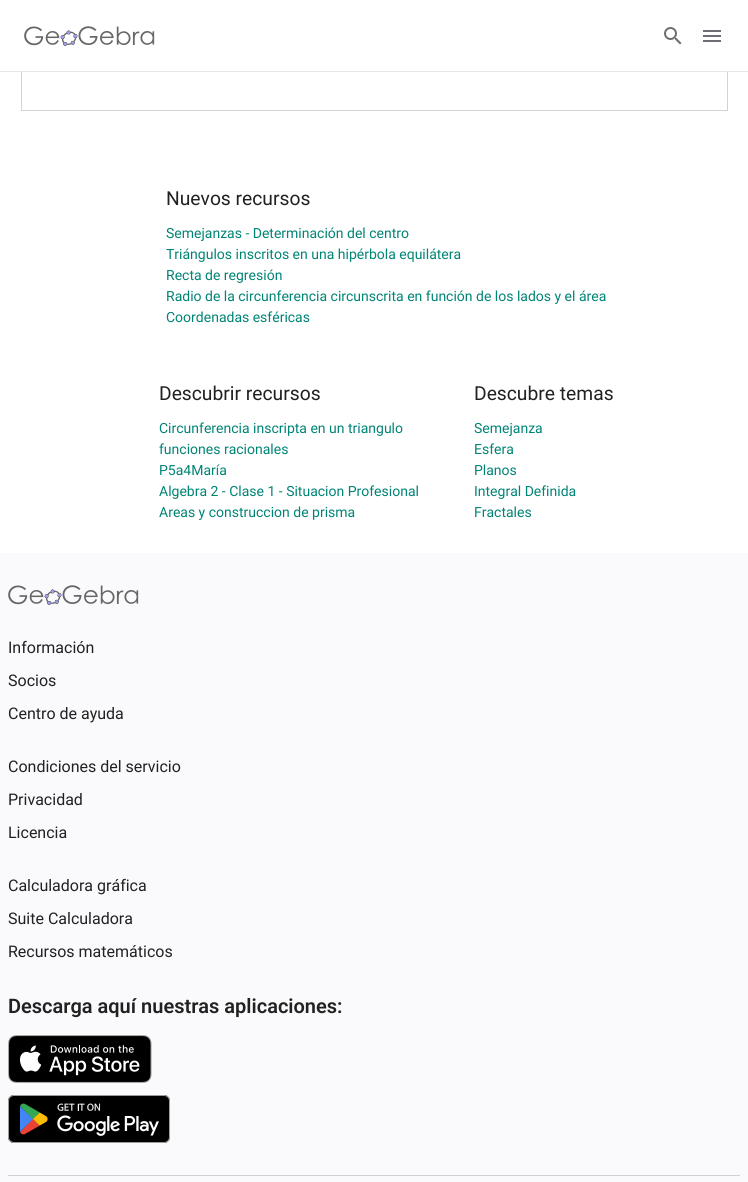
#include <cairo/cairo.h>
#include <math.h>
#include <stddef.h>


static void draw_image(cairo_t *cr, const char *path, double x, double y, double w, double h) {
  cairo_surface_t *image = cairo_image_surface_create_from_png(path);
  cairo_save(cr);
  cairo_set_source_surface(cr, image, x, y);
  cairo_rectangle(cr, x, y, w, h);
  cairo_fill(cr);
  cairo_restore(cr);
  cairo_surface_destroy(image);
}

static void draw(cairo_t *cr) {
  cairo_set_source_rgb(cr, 1, 1, 1);
  cairo_paint(cr);
  cairo_rectangle(cr, 21.5, -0.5, 706, 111);
  cairo_set_source_rgb(cr, 211 / 255.0, 211 / 255.0, 211 / 255.0);
  cairo_set_line_width(cr, 1);
  cairo_stroke(cr);
  cairo_set_source_rgb(cr, 1, 1, 1);
  cairo_rectangle(cr, 21, 0, 707, 71);
  cairo_fill(cr);
  cairo_set_source_rgb(cr, 230 / 255.0, 230 / 255.0, 235 / 255.0);
  cairo_rectangle(cr, 0, 71, 748, 1);
  cairo_fill(cr);
  draw_image(cr, "images/1.png", 24, 26, 131, 20);
  draw_image(cr, "images/2.png", 664, 27, 18, 18);
  draw_image(cr, "images/3.png", 703, 30, 18, 12);
  cairo_set_source_rgb(cr, 250 / 255.0, 250 / 255.0, 252 / 255.0);
  cairo_rectangle(cr, 0, 553, 748, 629);
  cairo_fill(cr);
  draw_image(cr, "images/4.png", 8, 585, 131, 20);
  draw_image(cr, "images/5.png", 8, 1035, 144, 48);
  draw_image(cr, "images/6.png", 8, 1095, 162, 48);
  cairo_set_source_rgb(cr, 209 / 255.0, 208 / 255.0, 214 / 255.0);
  cairo_rectangle(cr, 8, 1175, 732, 1);
  cairo_fill(cr);
  cairo_select_font_face(cr, "Roboto", CAIRO_FONT_SLANT_NORMAL, CAIRO_FONT_WEIGHT_NORMAL);
  cairo_set_font_size(cr, 19.25);
  cairo_set_source_rgb(cr, 33 / 255.0, 33 / 255.0, 33 / 255.0);
  cairo_move_to(cr, 166, 205);
  cairo_show_text(cr, "Nuevos recursos");
  cairo_set_font_size(cr, 14);
  cairo_set_source_rgb(cr, 0, 132 / 255.0, 117 / 255.0);
  cairo_move_to(cr, 166, 238);
  cairo_show_text(cr, "Semejanzas - Determinación del centro");
  cairo_move_to(cr, 166, 259);
  cairo_show_text(cr, "Triángulos inscritos en una hipérbola equilátera");
  cairo_move_to(cr, 166, 280);
  cairo_show_text(cr, "Recta de regresión");
  cairo_move_to(cr, 166, 301);
  cairo_show_text(cr, "Radio de la circunferencia circunscrita en función de los lados y el área");
  cairo_move_to(cr, 166, 322);
  cairo_show_text(cr, "Coordenadas esféricas");
  cairo_set_font_size(cr, 19.25);
  cairo_set_source_rgb(cr, 33 / 255.0, 33 / 255.0, 33 / 255.0);
  cairo_move_to(cr, 159, 400);
  cairo_show_text(cr, "Descubrir recursos");
  cairo_set_font_size(cr, 14);
  cairo_set_source_rgb(cr, 0, 132 / 255.0, 117 / 255.0);
  cairo_move_to(cr, 159, 433);
  cairo_show_text(cr, "Circunferencia inscripta en un triangulo");
  cairo_move_to(cr, 159, 454);
  cairo_show_text(cr, "funciones racionales");
  cairo_move_to(cr, 159, 475);
  cairo_show_text(cr, "P5a4María");
  cairo_move_to(cr, 159, 496);
  cairo_show_text(cr, "Algebra 2 - Clase 1 - Situacion Profesional");
  cairo_move_to(cr, 159, 517);
  cairo_show_text(cr, "Areas y construccion de prisma");
  cairo_set_font_size(cr, 19.25);
  cairo_set_source_rgb(cr, 33 / 255.0, 33 / 255.0, 33 / 255.0);
  cairo_move_to(cr, 474, 400);
  cairo_show_text(cr, "Descubre temas");
  cairo_set_font_size(cr, 14);
  cairo_set_source_rgb(cr, 0, 132 / 255.0, 117 / 255.0);
  cairo_move_to(cr, 474, 433);
  cairo_show_text(cr, "Semejanza");
  cairo_move_to(cr, 474, 454);
  cairo_show_text(cr, "Esfera");
  cairo_move_to(cr, 474, 475);
  cairo_show_text(cr, "Planos");
  cairo_move_to(cr, 474, 496);
  cairo_show_text(cr, "Integral Definida");
  cairo_move_to(cr, 474, 517);
  cairo_show_text(cr, "Fractales");
  cairo_set_font_size(cr, 16);
  cairo_set_source_rgb(cr, 33 / 255.0, 33 / 255.0, 33 / 255.0);
  cairo_move_to(cr, 8, 653);
  cairo_show_text(cr, "Información");
  cairo_move_to(cr, 8, 686);
  cairo_show_text(cr, "Socios");
  cairo_move_to(cr, 8, 719);
  cairo_show_text(cr, "Centro de ayuda");
  cairo_move_to(cr, 8, 772);
  cairo_show_text(cr, "Condiciones del servicio");
  cairo_move_to(cr, 8, 805);
  cairo_show_text(cr, "Privacidad");
  cairo_move_to(cr, 8, 838);
  cairo_show_text(cr, "Licencia");
  cairo_move_to(cr, 8, 891);
  cairo_show_text(cr, "Calculadora gráfica");
  cairo_move_to(cr, 8, 924);
  cairo_show_text(cr, "Suite Calculadora");
  cairo_move_to(cr, 8, 957);
  cairo_show_text(cr, "Recursos matemáticos");
  cairo_select_font_face(cr, "Roboto SemiBold", CAIRO_FONT_SLANT_NORMAL, CAIRO_FONT_WEIGHT_NORMAL);
  cairo_set_font_size(cr, 20);
  cairo_move_to(cr, 8, 1013);
  cairo_show_text(cr, "Descarga aquí nuestras aplicaciones:");
}

int main(void) {
  cairo_surface_t *surface = cairo_image_surface_create(CAIRO_FORMAT_RGB24, 748, 1182);
  cairo_t *cr = cairo_create(surface);
  cairo_font_options_t *options = cairo_font_options_create();
  cairo_font_options_set_hint_metrics(options, CAIRO_HINT_METRICS_OFF);
  cairo_font_options_set_hint_style(options, CAIRO_HINT_STYLE_NONE);
  cairo_set_font_options(cr, options);
  cairo_set_miter_limit(cr, 4);
  draw(cr);
  cairo_surface_write_to_png(surface, "out.png");
  cairo_font_options_destroy(options);
  cairo_destroy(cr);
  cairo_surface_destroy(surface);
  return 0;
}
